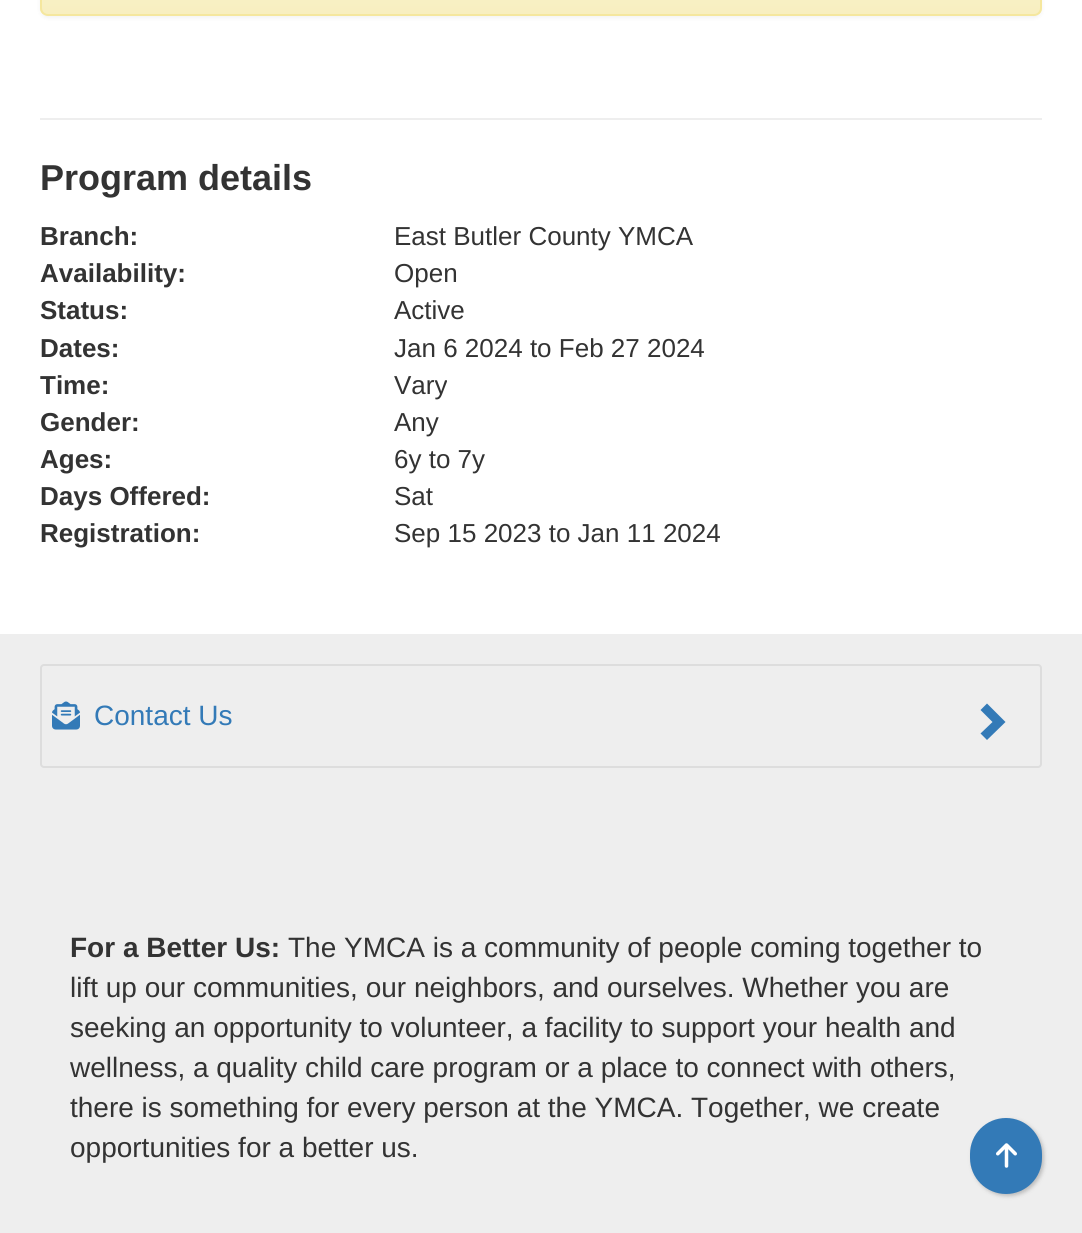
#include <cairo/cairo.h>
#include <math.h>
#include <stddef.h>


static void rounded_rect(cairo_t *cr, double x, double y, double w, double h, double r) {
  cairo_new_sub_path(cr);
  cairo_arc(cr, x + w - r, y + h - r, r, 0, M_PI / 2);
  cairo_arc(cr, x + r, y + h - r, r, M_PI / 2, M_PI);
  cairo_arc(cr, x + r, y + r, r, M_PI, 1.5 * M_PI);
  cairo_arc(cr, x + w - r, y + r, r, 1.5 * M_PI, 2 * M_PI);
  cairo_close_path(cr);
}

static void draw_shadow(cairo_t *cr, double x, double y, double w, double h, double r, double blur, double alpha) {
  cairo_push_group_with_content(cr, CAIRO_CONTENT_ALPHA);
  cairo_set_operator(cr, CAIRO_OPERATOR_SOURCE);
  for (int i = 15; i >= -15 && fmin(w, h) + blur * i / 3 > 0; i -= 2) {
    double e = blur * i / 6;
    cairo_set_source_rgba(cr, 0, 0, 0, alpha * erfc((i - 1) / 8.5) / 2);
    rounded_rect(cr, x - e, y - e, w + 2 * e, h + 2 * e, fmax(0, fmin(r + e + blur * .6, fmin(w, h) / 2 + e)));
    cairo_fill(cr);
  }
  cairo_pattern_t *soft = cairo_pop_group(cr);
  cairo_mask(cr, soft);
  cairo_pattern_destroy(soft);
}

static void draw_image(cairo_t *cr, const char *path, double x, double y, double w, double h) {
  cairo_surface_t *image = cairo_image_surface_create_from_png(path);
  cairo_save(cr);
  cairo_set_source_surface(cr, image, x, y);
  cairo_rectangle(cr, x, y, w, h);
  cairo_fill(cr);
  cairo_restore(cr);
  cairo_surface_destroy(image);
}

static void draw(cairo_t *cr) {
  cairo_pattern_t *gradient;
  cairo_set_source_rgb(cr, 1, 1, 1);
  cairo_paint(cr);
  cairo_set_source_rgb(cr, 0, 0, 0);
  draw_shadow(cr, 40, -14, 1002, 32, 8, 2, 0.05);
  cairo_save(cr);
  rounded_rect(cr, 40, -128, 1002, 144, 8);
  cairo_clip(cr);
  gradient = cairo_pattern_create_linear(541, -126, 541, 14);
  cairo_pattern_add_color_stop_rgba(gradient, 0, 252 / 255.0, 248 / 255.0, 227 / 255.0, 1);
  cairo_pattern_add_color_stop_rgba(gradient, 1, 248 / 255.0, 239 / 255.0, 192 / 255.0, 1);
  cairo_set_source(cr, gradient);
  cairo_pattern_destroy(gradient);
  cairo_rectangle(cr, 40, 0, 1002, 14);
  cairo_fill(cr);
  cairo_restore(cr);
  rounded_rect(cr, 41, -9, 1000, 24, 7);
  cairo_set_source_rgb(cr, 245 / 255.0, 231 / 255.0, 158 / 255.0);
  cairo_stroke(cr);
  cairo_set_source_rgb(cr, 238 / 255.0, 238 / 255.0, 238 / 255.0);
  cairo_rectangle(cr, 40, 118, 1002, 2);
  cairo_fill(cr);
  cairo_rectangle(cr, 0, 634, 1082, 599);
  cairo_fill(cr);
  rounded_rect(cr, 41, 665, 1000, 102, 3);
  cairo_set_source_rgb(cr, 221 / 255.0, 221 / 255.0, 221 / 255.0);
  cairo_stroke(cr);
  draw_image(cr, "images/1.png", 52, 701, 28, 29);
  cairo_set_source_rgb(cr, 51 / 255.0, 122 / 255.0, 183 / 255.0);
  cairo_new_path(cr);
  cairo_move_to(cr, 1005.5, 722);
  cairo_line_to(cr, 987, 740);
  cairo_line_to(cr, 980.5, 733.5);
  cairo_line_to(cr, 992.5, 722);
  cairo_line_to(cr, 980.5, 710);
  cairo_line_to(cr, 987, 703.5);
  cairo_close_path(cr);
  cairo_fill(cr);
  cairo_set_source_rgb(cr, 187 / 255.0, 187 / 255.0, 187 / 255.0);
  draw_shadow(cr, 972, 1120, 72, 76, 36, 2, 1);
  cairo_set_source_rgb(cr, 51 / 255.0, 122 / 255.0, 183 / 255.0);
  rounded_rect(cr, 970, 1118, 72, 76, 36);
  cairo_fill(cr);
  draw_image(cr, "images/2.png", 996, 1143, 21, 25);
  cairo_select_font_face(cr, "Liberation Sans", CAIRO_FONT_SLANT_NORMAL, CAIRO_FONT_WEIGHT_BOLD);
  cairo_set_font_size(cr, 36);
  cairo_set_source_rgb(cr, 51 / 255.0, 51 / 255.0, 51 / 255.0);
  cairo_move_to(cr, 40, 190);
  cairo_show_text(cr, "Program details");
  cairo_set_font_size(cr, 26);
  cairo_move_to(cr, 40, 245);
  cairo_show_text(cr, "Branch:");
  cairo_select_font_face(cr, "Liberation Sans", CAIRO_FONT_SLANT_NORMAL, CAIRO_FONT_WEIGHT_NORMAL);
  cairo_move_to(cr, 394, 245);
  cairo_show_text(cr, "East Butler County YMCA");
  cairo_select_font_face(cr, "Liberation Sans", CAIRO_FONT_SLANT_NORMAL, CAIRO_FONT_WEIGHT_BOLD);
  cairo_move_to(cr, 40, 282);
  cairo_show_text(cr, "Availability:");
  cairo_select_font_face(cr, "Liberation Sans", CAIRO_FONT_SLANT_NORMAL, CAIRO_FONT_WEIGHT_NORMAL);
  cairo_move_to(cr, 394, 282);
  cairo_show_text(cr, "Open");
  cairo_select_font_face(cr, "Liberation Sans", CAIRO_FONT_SLANT_NORMAL, CAIRO_FONT_WEIGHT_BOLD);
  cairo_move_to(cr, 40, 319);
  cairo_show_text(cr, "Status:");
  cairo_select_font_face(cr, "Liberation Sans", CAIRO_FONT_SLANT_NORMAL, CAIRO_FONT_WEIGHT_NORMAL);
  cairo_move_to(cr, 394, 319);
  cairo_show_text(cr, "Active");
  cairo_select_font_face(cr, "Liberation Sans", CAIRO_FONT_SLANT_NORMAL, CAIRO_FONT_WEIGHT_BOLD);
  cairo_move_to(cr, 40, 357);
  cairo_show_text(cr, "Dates:");
  cairo_select_font_face(cr, "Liberation Sans", CAIRO_FONT_SLANT_NORMAL, CAIRO_FONT_WEIGHT_NORMAL);
  cairo_move_to(cr, 394, 357);
  cairo_show_text(cr, "Jan 6 2024 to Feb 27 2024");
  cairo_select_font_face(cr, "Liberation Sans", CAIRO_FONT_SLANT_NORMAL, CAIRO_FONT_WEIGHT_BOLD);
  cairo_move_to(cr, 40, 394);
  cairo_show_text(cr, "Time:");
  cairo_select_font_face(cr, "Liberation Sans", CAIRO_FONT_SLANT_NORMAL, CAIRO_FONT_WEIGHT_NORMAL);
  cairo_move_to(cr, 394, 394);
  cairo_show_text(cr, "Vary");
  cairo_select_font_face(cr, "Liberation Sans", CAIRO_FONT_SLANT_NORMAL, CAIRO_FONT_WEIGHT_BOLD);
  cairo_move_to(cr, 40, 431);
  cairo_show_text(cr, "Gender:");
  cairo_select_font_face(cr, "Liberation Sans", CAIRO_FONT_SLANT_NORMAL, CAIRO_FONT_WEIGHT_NORMAL);
  cairo_move_to(cr, 394, 431);
  cairo_show_text(cr, "Any");
  cairo_select_font_face(cr, "Liberation Sans", CAIRO_FONT_SLANT_NORMAL, CAIRO_FONT_WEIGHT_BOLD);
  cairo_move_to(cr, 40, 468);
  cairo_show_text(cr, "Ages:");
  cairo_select_font_face(cr, "Liberation Sans", CAIRO_FONT_SLANT_NORMAL, CAIRO_FONT_WEIGHT_NORMAL);
  cairo_move_to(cr, 394, 468);
  cairo_show_text(cr, "6y to 7y");
  cairo_select_font_face(cr, "Liberation Sans", CAIRO_FONT_SLANT_NORMAL, CAIRO_FONT_WEIGHT_BOLD);
  cairo_move_to(cr, 40, 505);
  cairo_show_text(cr, "Days Offered:");
  cairo_select_font_face(cr, "Liberation Sans", CAIRO_FONT_SLANT_NORMAL, CAIRO_FONT_WEIGHT_NORMAL);
  cairo_move_to(cr, 394, 505);
  cairo_show_text(cr, "Sat");
  cairo_select_font_face(cr, "Liberation Sans", CAIRO_FONT_SLANT_NORMAL, CAIRO_FONT_WEIGHT_BOLD);
  cairo_move_to(cr, 40, 542);
  cairo_show_text(cr, "Registration:");
  cairo_select_font_face(cr, "Liberation Sans", CAIRO_FONT_SLANT_NORMAL, CAIRO_FONT_WEIGHT_NORMAL);
  cairo_move_to(cr, 394, 542);
  cairo_show_text(cr, "Sep 15 2023 to Jan 11 2024");
  cairo_set_font_size(cr, 28);
  cairo_set_source_rgb(cr, 51 / 255.0, 122 / 255.0, 183 / 255.0);
  cairo_move_to(cr, 94, 725);
  cairo_show_text(cr, "Contact Us");
  cairo_select_font_face(cr, "Liberation Sans", CAIRO_FONT_SLANT_NORMAL, CAIRO_FONT_WEIGHT_BOLD);
  cairo_set_source_rgb(cr, 51 / 255.0, 51 / 255.0, 51 / 255.0);
  cairo_move_to(cr, 70, 957);
  cairo_show_text(cr, "For a Better Us:");
  cairo_select_font_face(cr, "Liberation Sans", CAIRO_FONT_SLANT_NORMAL, CAIRO_FONT_WEIGHT_NORMAL);
  cairo_move_to(cr, 288, 957);
  cairo_show_text(cr, "The YMCA is a community of people coming together to");
  cairo_move_to(cr, 70, 997);
  cairo_show_text(cr, "lift up our communities, our neighbors, and ourselves. Whether you are");
  cairo_move_to(cr, 70, 1037);
  cairo_show_text(cr, "seeking an opportunity to volunteer, a facility to support your health and");
  cairo_move_to(cr, 70, 1077);
  cairo_show_text(cr, "wellness, a quality child care program or a place to connect with others,");
  cairo_move_to(cr, 70, 1117);
  cairo_show_text(cr, "there is something for every person at the YMCA. Together, we create");
  cairo_move_to(cr, 70, 1157);
  cairo_show_text(cr, "opportunities for a better us.");
}

int main(void) {
  cairo_surface_t *surface = cairo_image_surface_create(CAIRO_FORMAT_RGB24, 1082, 1233);
  cairo_t *cr = cairo_create(surface);
  cairo_font_options_t *options = cairo_font_options_create();
  cairo_font_options_set_hint_metrics(options, CAIRO_HINT_METRICS_OFF);
  cairo_font_options_set_hint_style(options, CAIRO_HINT_STYLE_NONE);
  cairo_set_font_options(cr, options);
  cairo_set_miter_limit(cr, 4);
  draw(cr);
  cairo_surface_write_to_png(surface, "out.png");
  cairo_font_options_destroy(options);
  cairo_destroy(cr);
  cairo_surface_destroy(surface);
  return 0;
}
